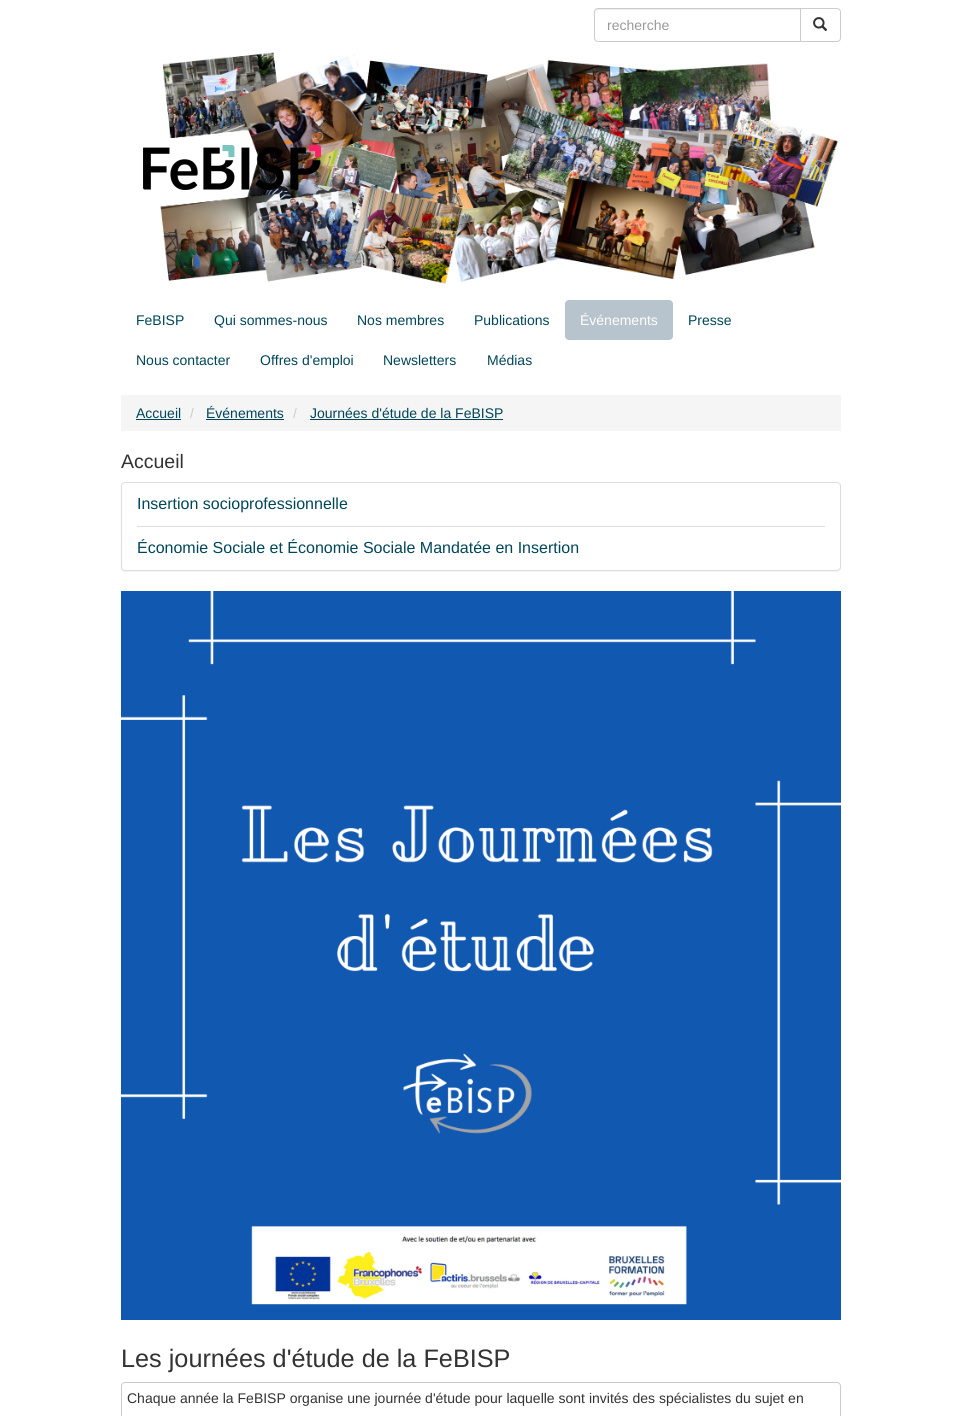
#include <cairo/cairo.h>
#include <math.h>
#include <stddef.h>


static void rounded_rect(cairo_t *cr, double x, double y, double w, double h, double r) {
  cairo_new_sub_path(cr);
  cairo_arc(cr, x + w - r, y + h - r, r, 0, M_PI / 2);
  cairo_arc(cr, x + r, y + h - r, r, M_PI / 2, M_PI);
  cairo_arc(cr, x + r, y + r, r, M_PI, 1.5 * M_PI);
  cairo_arc(cr, x + w - r, y + r, r, 1.5 * M_PI, 2 * M_PI);
  cairo_close_path(cr);
}

static void draw_shadow(cairo_t *cr, double x, double y, double w, double h, double r, double blur, double alpha) {
  cairo_push_group_with_content(cr, CAIRO_CONTENT_ALPHA);
  cairo_set_operator(cr, CAIRO_OPERATOR_SOURCE);
  for (int i = 15; i >= -15 && fmin(w, h) + blur * i / 3 > 0; i -= 2) {
    double e = blur * i / 6;
    cairo_set_source_rgba(cr, 0, 0, 0, alpha * erfc((i - 1) / 8.5) / 2);
    rounded_rect(cr, x - e, y - e, w + 2 * e, h + 2 * e, fmax(0, fmin(r + e + blur * .6, fmin(w, h) / 2 + e)));
    cairo_fill(cr);
  }
  cairo_pattern_t *soft = cairo_pop_group(cr);
  cairo_mask(cr, soft);
  cairo_pattern_destroy(soft);
}

static void draw_image(cairo_t *cr, const char *path, double x, double y, double w, double h) {
  cairo_surface_t *image = cairo_image_surface_create_from_png(path);
  cairo_save(cr);
  cairo_set_source_surface(cr, image, x, y);
  cairo_rectangle(cr, x, y, w, h);
  cairo_fill(cr);
  cairo_restore(cr);
  cairo_surface_destroy(image);
}

static void draw(cairo_t *cr) {
  cairo_set_source_rgb(cr, 1, 1, 1);
  cairo_paint(cr);
  cairo_set_source_rgb(cr, 236 / 255.0, 236 / 255.0, 236 / 255.0);
  cairo_new_path(cr);
  cairo_move_to(cr, 598, 10);
  cairo_line_to(cr, 800, 10);
  cairo_line_to(cr, 800, 9);
  cairo_line_to(cr, 597, 9);
  cairo_curve_to(cr, 595, 10, 595, 11, 595, 13);
  cairo_curve_to(cr, 595, 11, 596, 10, 598, 10);
  cairo_close_path(cr);
  cairo_fill(cr);
  cairo_new_path(cr);
  cairo_move_to(cr, 598, 8.5);
  cairo_line_to(cr, 800.5, 8.5);
  cairo_line_to(cr, 800.5, 41.5);
  cairo_line_to(cr, 598, 41.5);
  cairo_curve_to(cr, 596, 41.5, 594.5, 40, 594.5, 38);
  cairo_line_to(cr, 594.5, 12);
  cairo_curve_to(cr, 594.5, 10, 596, 8.5, 598, 8.5);
  cairo_close_path(cr);
  cairo_set_source_rgb(cr, 204 / 255.0, 204 / 255.0, 204 / 255.0);
  cairo_set_line_width(cr, 1);
  cairo_stroke(cr);
  cairo_set_source_rgb(cr, 1, 1, 1);
  cairo_new_path(cr);
  cairo_move_to(cr, 800.5, 8.5);
  cairo_line_to(cr, 837, 8.5);
  cairo_curve_to(cr, 839, 8.5, 840.5, 10, 840.5, 12);
  cairo_line_to(cr, 840.5, 38);
  cairo_curve_to(cr, 840.5, 40, 839, 41.5, 837, 41.5);
  cairo_line_to(cr, 800.5, 41.5);
  cairo_close_path(cr);
  cairo_fill_preserve(cr);
  cairo_set_source_rgb(cr, 204 / 255.0, 204 / 255.0, 204 / 255.0);
  cairo_stroke(cr);
  draw_image(cr, "images/1.png", 813, 17, 15, 14);
  draw_image(cr, "images/2.png", 160, 52, 678, 232);
  draw_image(cr, "images/3.png", 143, 145, 178, 45);
  cairo_set_source_rgb(cr, 183 / 255.0, 195 / 255.0, 205 / 255.0);
  rounded_rect(cr, 565, 300, 108, 40, 4);
  cairo_fill(cr);
  cairo_set_source_rgb(cr, 245 / 255.0, 245 / 255.0, 245 / 255.0);
  cairo_rectangle(cr, 121, 395, 720, 36);
  cairo_fill(cr);
  cairo_set_source_rgb(cr, 0, 70 / 255.0, 89 / 255.0);
  cairo_rectangle(cr, 136, 419, 45, 1);
  cairo_fill(cr);
  cairo_rectangle(cr, 206, 419, 78, 1);
  cairo_fill(cr);
  cairo_rectangle(cr, 310, 419, 193, 1);
  cairo_fill(cr);
  cairo_set_source_rgb(cr, 0, 0, 0);
  draw_shadow(cr, 121, 483, 720, 89, 4, 0.5, 0.05);
  cairo_set_source_rgb(cr, 1, 1, 1);
  rounded_rect(cr, 121.5, 482.5, 719, 88, 3.5);
  cairo_fill_preserve(cr);
  cairo_set_source_rgb(cr, 221 / 255.0, 221 / 255.0, 221 / 255.0);
  cairo_stroke(cr);
  cairo_rectangle(cr, 137, 526, 688, 1);
  cairo_fill(cr);
  draw_image(cr, "images/4.png", 121, 591, 720, 729);
  rounded_rect(cr, 121.5, 1382.5, 719, 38, 3.5);
  cairo_set_source_rgb(cr, 204 / 255.0, 204 / 255.0, 204 / 255.0);
  cairo_stroke(cr);
  cairo_select_font_face(cr, "Liberation Sans", CAIRO_FONT_SLANT_NORMAL, CAIRO_FONT_WEIGHT_NORMAL);
  cairo_set_font_size(cr, 14);
  cairo_set_source_rgb(cr, 153 / 255.0, 153 / 255.0, 153 / 255.0);
  cairo_move_to(cr, 607, 30);
  cairo_show_text(cr, "recherche");
  cairo_set_source_rgb(cr, 0, 70 / 255.0, 89 / 255.0);
  cairo_move_to(cr, 136, 325);
  cairo_show_text(cr, "FeBISP");
  cairo_move_to(cr, 214, 325);
  cairo_show_text(cr, "Qui sommes-nous");
  cairo_move_to(cr, 357, 325);
  cairo_show_text(cr, "Nos membres");
  cairo_move_to(cr, 474, 325);
  cairo_show_text(cr, "Publications");
  cairo_set_source_rgb(cr, 1, 1, 1);
  cairo_move_to(cr, 580, 325);
  cairo_show_text(cr, "Événements");
  cairo_set_source_rgb(cr, 0, 70 / 255.0, 89 / 255.0);
  cairo_move_to(cr, 688, 325);
  cairo_show_text(cr, "Presse");
  cairo_move_to(cr, 136, 365);
  cairo_show_text(cr, "Nous contacter");
  cairo_move_to(cr, 260, 365);
  cairo_show_text(cr, "Offres d'emploi");
  cairo_move_to(cr, 383, 365);
  cairo_show_text(cr, "Newsletters");
  cairo_move_to(cr, 487, 365);
  cairo_show_text(cr, "Médias");
  cairo_move_to(cr, 136, 418);
  cairo_show_text(cr, "Accueil");
  cairo_set_source_rgb(cr, 204 / 255.0, 204 / 255.0, 204 / 255.0);
  cairo_move_to(cr, 190, 418);
  cairo_show_text(cr, "/");
  cairo_set_source_rgb(cr, 0, 70 / 255.0, 89 / 255.0);
  cairo_move_to(cr, 206, 418);
  cairo_show_text(cr, "Événements");
  cairo_set_source_rgb(cr, 204 / 255.0, 204 / 255.0, 204 / 255.0);
  cairo_move_to(cr, 293, 418);
  cairo_show_text(cr, "/");
  cairo_set_source_rgb(cr, 0, 70 / 255.0, 89 / 255.0);
  cairo_move_to(cr, 310, 418);
  cairo_show_text(cr, "Journées d'étude de la FeBISP");
  cairo_set_font_size(cr, 19.5);
  cairo_set_source_rgb(cr, 51 / 255.0, 51 / 255.0, 51 / 255.0);
  cairo_move_to(cr, 121, 468);
  cairo_show_text(cr, "Accueil");
  cairo_set_font_size(cr, 16);
  cairo_set_source_rgb(cr, 0, 70 / 255.0, 89 / 255.0);
  cairo_move_to(cr, 137, 509);
  cairo_show_text(cr, "Insertion socioprofessionnelle");
  cairo_move_to(cr, 137, 553);
  cairo_show_text(cr, "Économie Sociale et Économie Sociale Mandatée en Insertion");
  cairo_set_font_size(cr, 25.25);
  cairo_set_source_rgb(cr, 51 / 255.0, 51 / 255.0, 51 / 255.0);
  cairo_move_to(cr, 121, 1367);
  cairo_show_text(cr, "Les journées d'étude de la FeBISP");
  cairo_set_font_size(cr, 14);
  cairo_move_to(cr, 127, 1403);
  cairo_show_text(cr, "Chaque année la FeBISP organise une journée d'étude pour laquelle sont invités des spécialistes du sujet en");
}

int main(void) {
  cairo_surface_t *surface = cairo_image_surface_create(CAIRO_FORMAT_RGB24, 961, 1416);
  cairo_t *cr = cairo_create(surface);
  cairo_font_options_t *options = cairo_font_options_create();
  cairo_font_options_set_hint_metrics(options, CAIRO_HINT_METRICS_OFF);
  cairo_font_options_set_hint_style(options, CAIRO_HINT_STYLE_NONE);
  cairo_set_font_options(cr, options);
  cairo_set_miter_limit(cr, 4);
  draw(cr);
  cairo_surface_write_to_png(surface, "out.png");
  cairo_font_options_destroy(options);
  cairo_destroy(cr);
  cairo_surface_destroy(surface);
  return 0;
}
